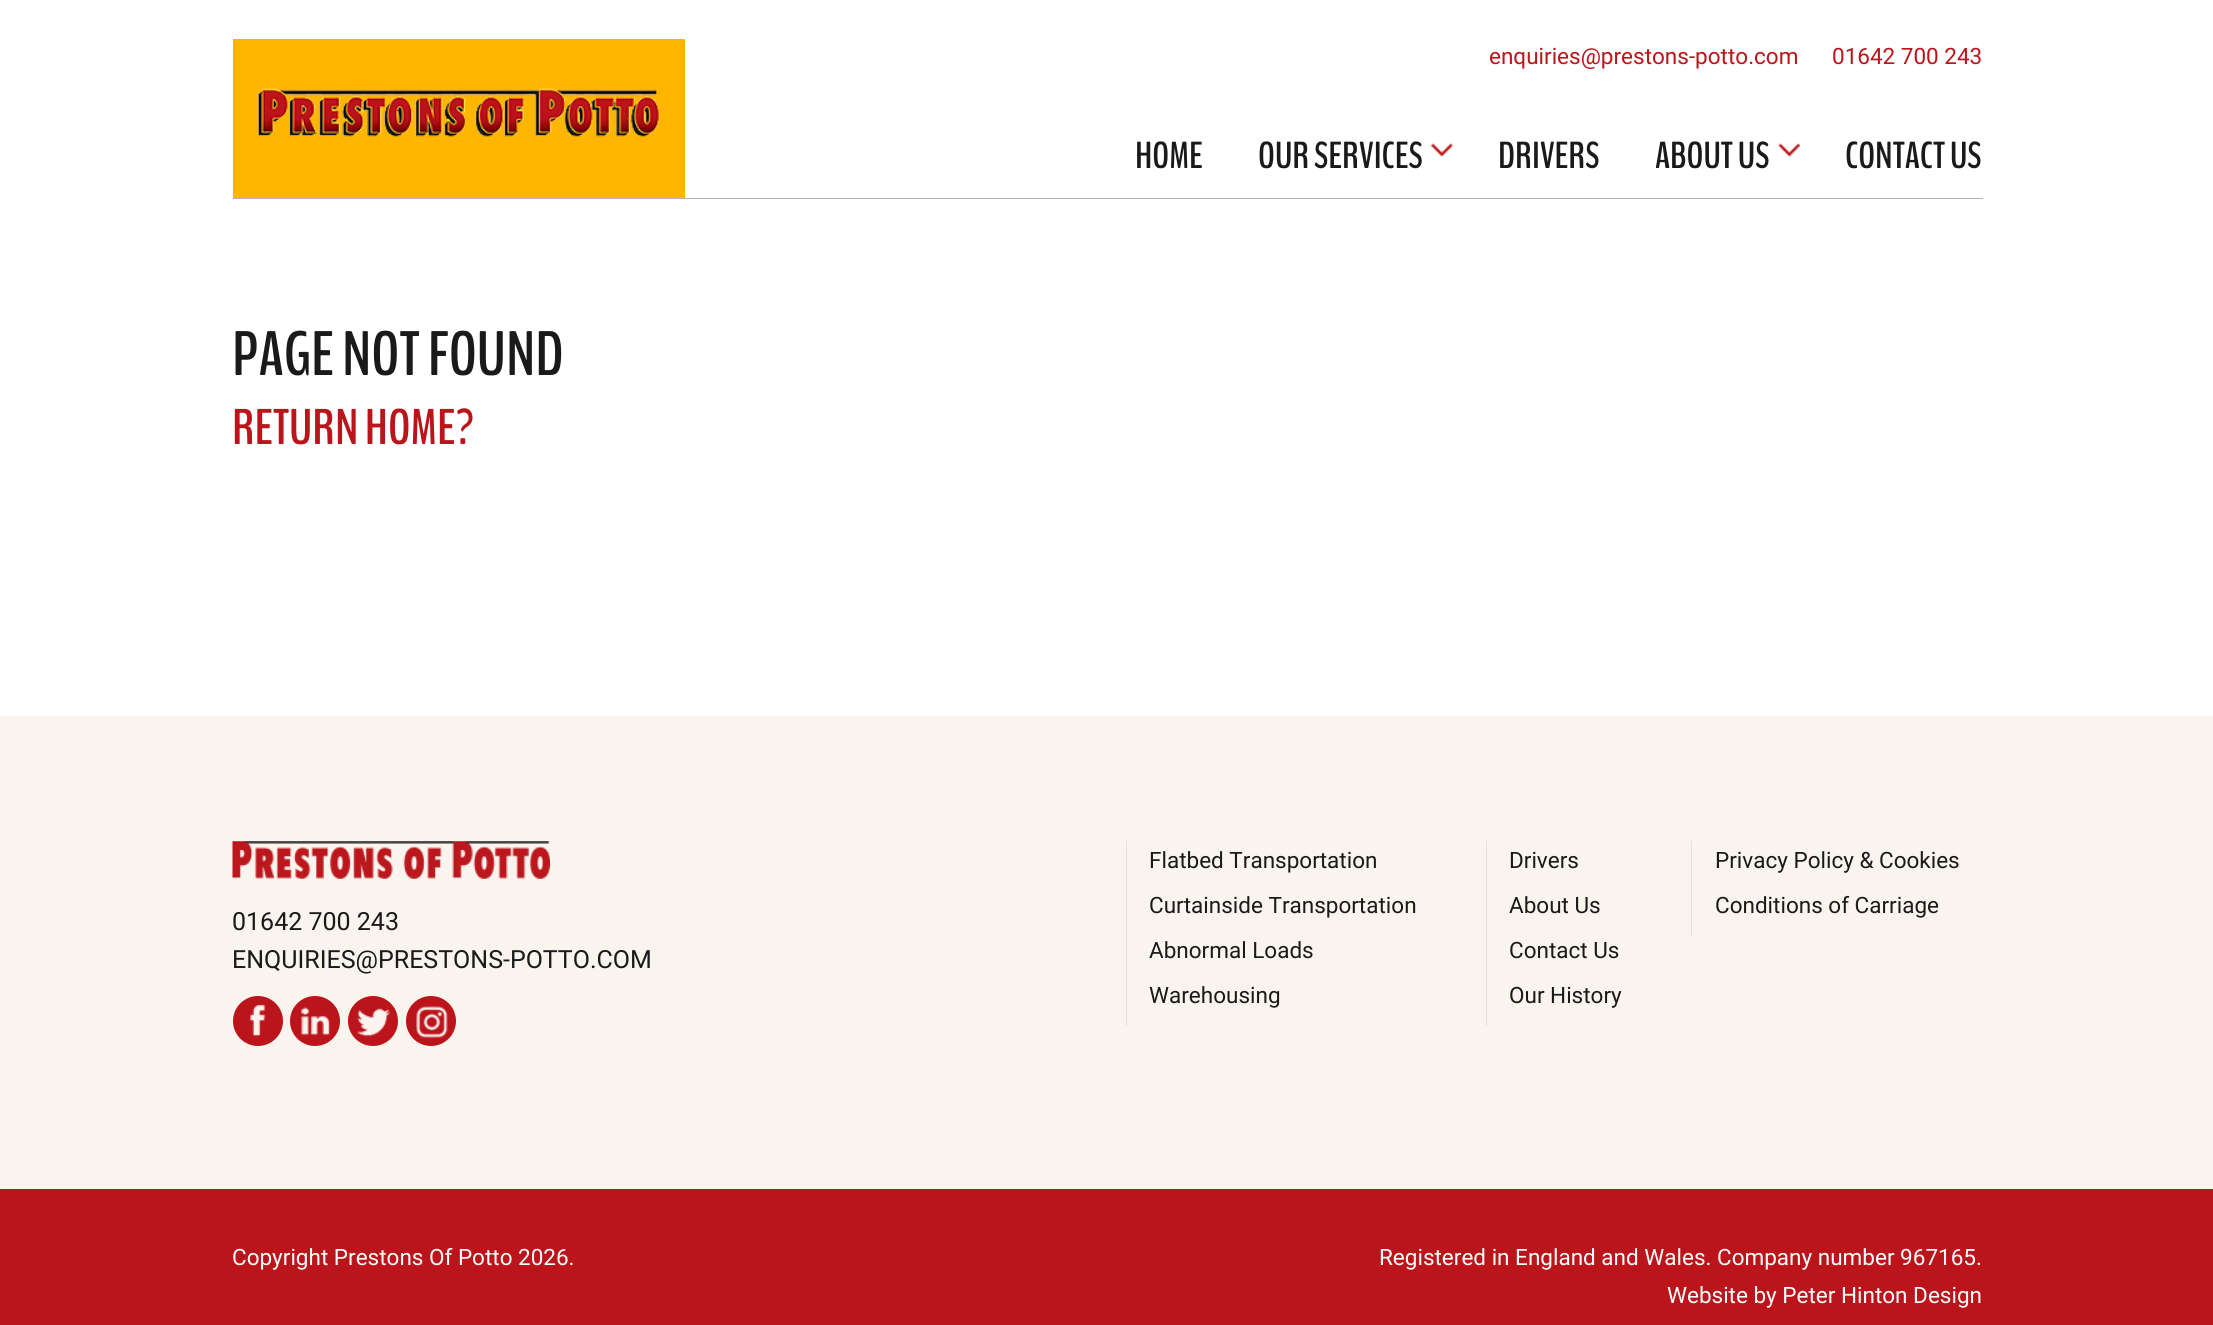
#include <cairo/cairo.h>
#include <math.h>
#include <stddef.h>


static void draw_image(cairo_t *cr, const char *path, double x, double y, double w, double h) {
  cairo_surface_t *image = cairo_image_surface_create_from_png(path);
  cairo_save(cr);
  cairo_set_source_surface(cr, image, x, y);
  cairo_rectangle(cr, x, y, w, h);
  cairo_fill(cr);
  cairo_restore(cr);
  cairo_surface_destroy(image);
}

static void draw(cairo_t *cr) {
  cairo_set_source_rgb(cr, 1, 1, 1);
  cairo_paint(cr);
  cairo_set_source_rgb(cr, 1, 182 / 255.0, 0);
  cairo_rectangle(cr, 233, 39, 452, 159);
  cairo_fill(cr);
  draw_image(cr, "images/1.png", 257, 88, 403, 49);
  draw_image(cr, "images/2.png", 1431, 143, 22, 14);
  draw_image(cr, "images/3.png", 1778, 143, 22, 14);
  cairo_set_source_rgb(cr, 179 / 255.0, 179 / 255.0, 179 / 255.0);
  cairo_rectangle(cr, 233, 198, 1750, 1);
  cairo_fill(cr);
  cairo_set_source_rgb(cr, 250 / 255.0, 244 / 255.0, 239 / 255.0);
  cairo_rectangle(cr, 0, 716, 2213, 473);
  cairo_fill(cr);
  draw_image(cr, "images/4.png", 232, 841, 318, 38);
  cairo_set_source_rgb(cr, 187 / 255.0, 20 / 255.0, 26 / 255.0);
  cairo_arc(cr, 258, 1021, 25, 0, 2 * M_PI);
  cairo_fill(cr);
  draw_image(cr, "images/5.png", 249, 1004, 17, 33);
  cairo_arc(cr, 315, 1021, 25, 0, 2 * M_PI);
  cairo_fill(cr);
  draw_image(cr, "images/6.png", 301, 1007, 29, 29);
  cairo_arc(cr, 373, 1021, 25, 0, 2 * M_PI);
  cairo_fill(cr);
  draw_image(cr, "images/7.png", 357, 1008, 34, 29);
  cairo_arc(cr, 431, 1021, 25, 0, 2 * M_PI);
  cairo_fill(cr);
  draw_image(cr, "images/8.png", 416, 1006, 32, 32);
  cairo_set_source_rgb(cr, 230 / 255.0, 224 / 255.0, 220 / 255.0);
  cairo_rectangle(cr, 1126, 841, 1, 185);
  cairo_fill(cr);
  cairo_rectangle(cr, 1486, 841, 1, 185);
  cairo_fill(cr);
  cairo_rectangle(cr, 1691, 841, 1, 95);
  cairo_fill(cr);
  cairo_set_source_rgb(cr, 187 / 255.0, 20 / 255.0, 26 / 255.0);
  cairo_rectangle(cr, 0, 1189, 2213, 136);
  cairo_fill(cr);
  cairo_select_font_face(cr, "Roboto", CAIRO_FONT_SLANT_NORMAL, CAIRO_FONT_WEIGHT_NORMAL);
  cairo_set_font_size(cr, 22.5);
  cairo_move_to(cr, 1489, 64);
  cairo_show_text(cr, "enquiries@prestons-potto.com");
  cairo_move_to(cr, 1832, 64);
  cairo_show_text(cr, "01642 700 243");
  cairo_select_font_face(cr, "BenchNine", CAIRO_FONT_SLANT_NORMAL, CAIRO_FONT_WEIGHT_BOLD);
  cairo_set_font_size(cr, 37.5);
  cairo_set_source_rgb(cr, 26 / 255.0, 26 / 255.0, 26 / 255.0);
  cairo_move_to(cr, 1135, 168);
  cairo_show_text(cr, "HOME");
  cairo_move_to(cr, 1258, 168);
  cairo_show_text(cr, "OUR SERVICES");
  cairo_move_to(cr, 1498, 168);
  cairo_show_text(cr, "DRIVERS");
  cairo_move_to(cr, 1655, 168);
  cairo_show_text(cr, "ABOUT US");
  cairo_move_to(cr, 1845, 168);
  cairo_show_text(cr, "CONTACT US");
  cairo_set_font_size(cr, 62.5);
  cairo_move_to(cr, 232, 375);
  cairo_show_text(cr, "PAGE NOT FOUND");
  cairo_set_font_size(cr, 50);
  cairo_set_source_rgb(cr, 187 / 255.0, 20 / 255.0, 26 / 255.0);
  cairo_move_to(cr, 232, 444);
  cairo_show_text(cr, "RETURN HOME?");
  cairo_select_font_face(cr, "Roboto", CAIRO_FONT_SLANT_NORMAL, CAIRO_FONT_WEIGHT_NORMAL);
  cairo_set_font_size(cr, 25);
  cairo_set_source_rgb(cr, 26 / 255.0, 26 / 255.0, 26 / 255.0);
  cairo_move_to(cr, 232, 930);
  cairo_show_text(cr, "01642 700 243");
  cairo_move_to(cr, 232, 968);
  cairo_show_text(cr, "ENQUIRIES@PRESTONS-POTTO.COM");
  cairo_set_font_size(cr, 22.5);
  cairo_move_to(cr, 1149, 868);
  cairo_show_text(cr, "Flatbed Transportation");
  cairo_move_to(cr, 1149, 913);
  cairo_show_text(cr, "Curtainside Transportation");
  cairo_move_to(cr, 1149, 958);
  cairo_show_text(cr, "Abnormal Loads");
  cairo_move_to(cr, 1149, 1003);
  cairo_show_text(cr, "Warehousing");
  cairo_move_to(cr, 1509, 868);
  cairo_show_text(cr, "Drivers");
  cairo_move_to(cr, 1509, 913);
  cairo_show_text(cr, "About Us");
  cairo_move_to(cr, 1509, 958);
  cairo_show_text(cr, "Contact Us");
  cairo_move_to(cr, 1509, 1003);
  cairo_show_text(cr, "Our History");
  cairo_move_to(cr, 1715, 868);
  cairo_show_text(cr, "Privacy Policy & Cookies");
  cairo_move_to(cr, 1715, 913);
  cairo_show_text(cr, "Conditions of Carriage");
  cairo_set_source_rgb(cr, 1, 1, 1);
  cairo_move_to(cr, 232, 1265);
  cairo_show_text(cr, "Copyright Prestons Of Potto 2026.");
  cairo_move_to(cr, 1379, 1265);
  cairo_show_text(cr, "Registered in England and Wales. Company number 967165.");
  cairo_move_to(cr, 1667, 1303);
  cairo_show_text(cr, "Website by Peter Hinton Design");
}

int main(void) {
  cairo_surface_t *surface = cairo_image_surface_create(CAIRO_FORMAT_RGB24, 2213, 1325);
  cairo_t *cr = cairo_create(surface);
  cairo_font_options_t *options = cairo_font_options_create();
  cairo_font_options_set_hint_metrics(options, CAIRO_HINT_METRICS_OFF);
  cairo_font_options_set_hint_style(options, CAIRO_HINT_STYLE_NONE);
  cairo_set_font_options(cr, options);
  cairo_set_miter_limit(cr, 4);
  draw(cr);
  cairo_surface_write_to_png(surface, "out.png");
  cairo_font_options_destroy(options);
  cairo_destroy(cr);
  cairo_surface_destroy(surface);
  return 0;
}
